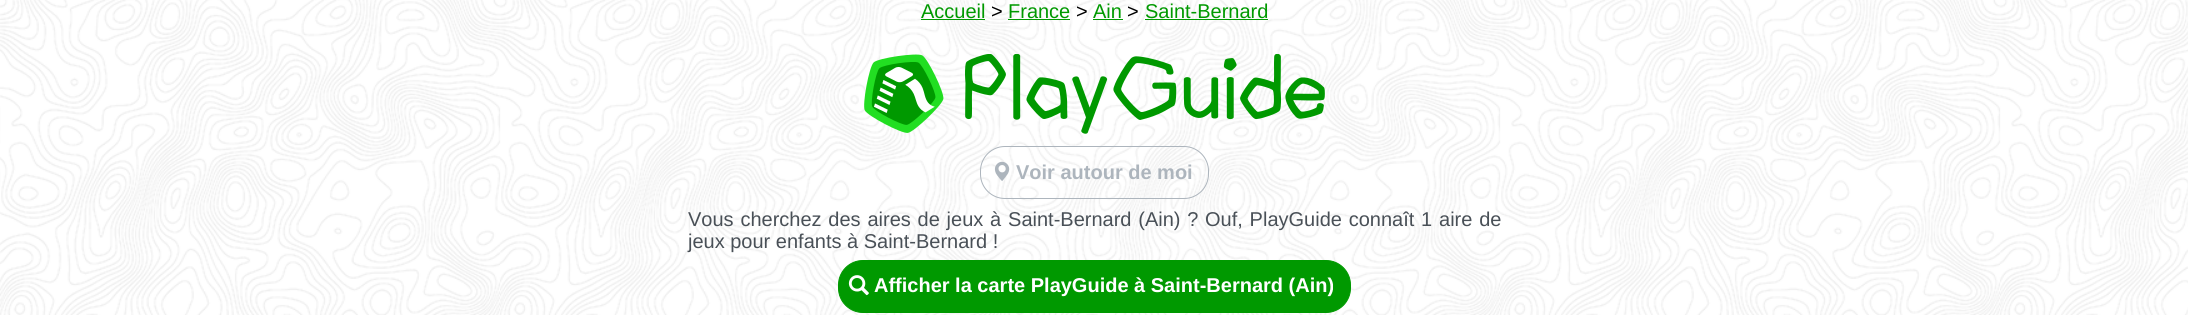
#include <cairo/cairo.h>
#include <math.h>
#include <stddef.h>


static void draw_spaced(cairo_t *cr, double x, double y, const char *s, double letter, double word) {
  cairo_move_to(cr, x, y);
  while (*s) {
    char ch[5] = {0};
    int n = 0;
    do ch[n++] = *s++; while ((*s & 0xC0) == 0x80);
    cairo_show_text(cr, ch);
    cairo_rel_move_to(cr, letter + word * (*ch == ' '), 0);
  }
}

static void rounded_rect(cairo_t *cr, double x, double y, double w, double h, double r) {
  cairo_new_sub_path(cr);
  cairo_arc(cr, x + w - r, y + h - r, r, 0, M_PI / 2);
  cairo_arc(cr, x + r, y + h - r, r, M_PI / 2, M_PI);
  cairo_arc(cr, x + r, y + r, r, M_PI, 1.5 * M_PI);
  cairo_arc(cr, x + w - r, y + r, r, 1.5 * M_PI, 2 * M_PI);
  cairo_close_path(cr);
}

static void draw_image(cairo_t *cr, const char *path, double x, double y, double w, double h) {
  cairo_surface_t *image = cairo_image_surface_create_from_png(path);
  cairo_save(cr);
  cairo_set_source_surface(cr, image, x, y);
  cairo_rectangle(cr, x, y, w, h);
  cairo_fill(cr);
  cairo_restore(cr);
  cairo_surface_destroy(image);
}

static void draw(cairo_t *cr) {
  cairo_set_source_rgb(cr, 1, 1, 1);
  cairo_paint(cr);
  draw_image(cr, "images/1.png", 0, 0, 2188, 315);
  cairo_set_source_rgb(cr, 0, 153 / 255.0, 0);
  cairo_rectangle(cr, 921, 19, 64, 1);
  cairo_fill(cr);
  cairo_rectangle(cr, 1008, 19, 62, 1);
  cairo_fill(cr);
  cairo_rectangle(cr, 1093, 19, 30, 1);
  cairo_fill(cr);
  cairo_rectangle(cr, 1145, 19, 123, 1);
  cairo_fill(cr);
  draw_image(cr, "images/2.png", 864, 54, 80, 79);
  draw_image(cr, "images/3.png", 965, 54, 360, 80);
  rounded_rect(cr, 980.5, 146.5, 228, 52, 24.5);
  cairo_set_source_rgb(cr, 173 / 255.0, 181 / 255.0, 189 / 255.0);
  cairo_set_line_width(cr, 1);
  cairo_stroke(cr);
  draw_image(cr, "images/4.png", 994, 161, 16, 20);
  cairo_set_source_rgb(cr, 0, 153 / 255.0, 0);
  rounded_rect(cr, 838.5, 260.5, 512, 52, 24.5);
  cairo_fill_preserve(cr);
  cairo_stroke(cr);
  draw_image(cr, "images/5.png", 848, 275, 21, 21);
  cairo_select_font_face(cr, "Liberation Sans", CAIRO_FONT_SLANT_NORMAL, CAIRO_FONT_WEIGHT_NORMAL);
  cairo_set_font_size(cr, 20);
  cairo_move_to(cr, 921, 18);
  cairo_show_text(cr, "Accueil");
  cairo_set_source_rgb(cr, 0, 0, 0);
  cairo_move_to(cr, 991, 18);
  cairo_show_text(cr, ">");
  cairo_set_source_rgb(cr, 0, 153 / 255.0, 0);
  cairo_move_to(cr, 1008, 18);
  cairo_show_text(cr, "France");
  cairo_set_source_rgb(cr, 0, 0, 0);
  cairo_move_to(cr, 1076, 18);
  cairo_show_text(cr, ">");
  cairo_set_source_rgb(cr, 0, 153 / 255.0, 0);
  cairo_move_to(cr, 1093, 18);
  cairo_show_text(cr, "Ain");
  cairo_set_source_rgb(cr, 0, 0, 0);
  cairo_move_to(cr, 1127, 18);
  cairo_show_text(cr, ">");
  cairo_set_source_rgb(cr, 0, 153 / 255.0, 0);
  cairo_move_to(cr, 1145, 18);
  cairo_show_text(cr, "Saint-Bernard");
  cairo_select_font_face(cr, "Liberation Sans", CAIRO_FONT_SLANT_NORMAL, CAIRO_FONT_WEIGHT_BOLD);
  cairo_set_source_rgb(cr, 173 / 255.0, 181 / 255.0, 189 / 255.0);
  cairo_move_to(cr, 1016, 179);
  cairo_show_text(cr, "Voir autour de moi");
  cairo_select_font_face(cr, "Liberation Sans", CAIRO_FONT_SLANT_NORMAL, CAIRO_FONT_WEIGHT_NORMAL);
  cairo_set_source_rgb(cr, 73 / 255.0, 80 / 255.0, 87 / 255.0);
  draw_spaced(cr, 688, 226, "Vous cherchez des aires de jeux à Saint-Bernard (Ain) ?", 0, 1.25);
  draw_spaced(cr, 1205, 226, "Ouf, PlayGuide connaît 1 aire de", 0, 1.25);
  cairo_move_to(cr, 688, 248);
  cairo_show_text(cr, "jeux pour enfants à Saint-Bernard !");
  cairo_select_font_face(cr, "Liberation Sans", CAIRO_FONT_SLANT_NORMAL, CAIRO_FONT_WEIGHT_BOLD);
  cairo_set_source_rgb(cr, 1, 1, 1);
  cairo_move_to(cr, 874, 292);
  cairo_show_text(cr, "Afficher la carte PlayGuide à Saint-Bernard (Ain)");
}

int main(void) {
  cairo_surface_t *surface = cairo_image_surface_create(CAIRO_FORMAT_RGB24, 2188, 315);
  cairo_t *cr = cairo_create(surface);
  cairo_font_options_t *options = cairo_font_options_create();
  cairo_font_options_set_hint_metrics(options, CAIRO_HINT_METRICS_OFF);
  cairo_font_options_set_hint_style(options, CAIRO_HINT_STYLE_NONE);
  cairo_set_font_options(cr, options);
  cairo_set_miter_limit(cr, 4);
  draw(cr);
  cairo_surface_write_to_png(surface, "out.png");
  cairo_font_options_destroy(options);
  cairo_destroy(cr);
  cairo_surface_destroy(surface);
  return 0;
}
